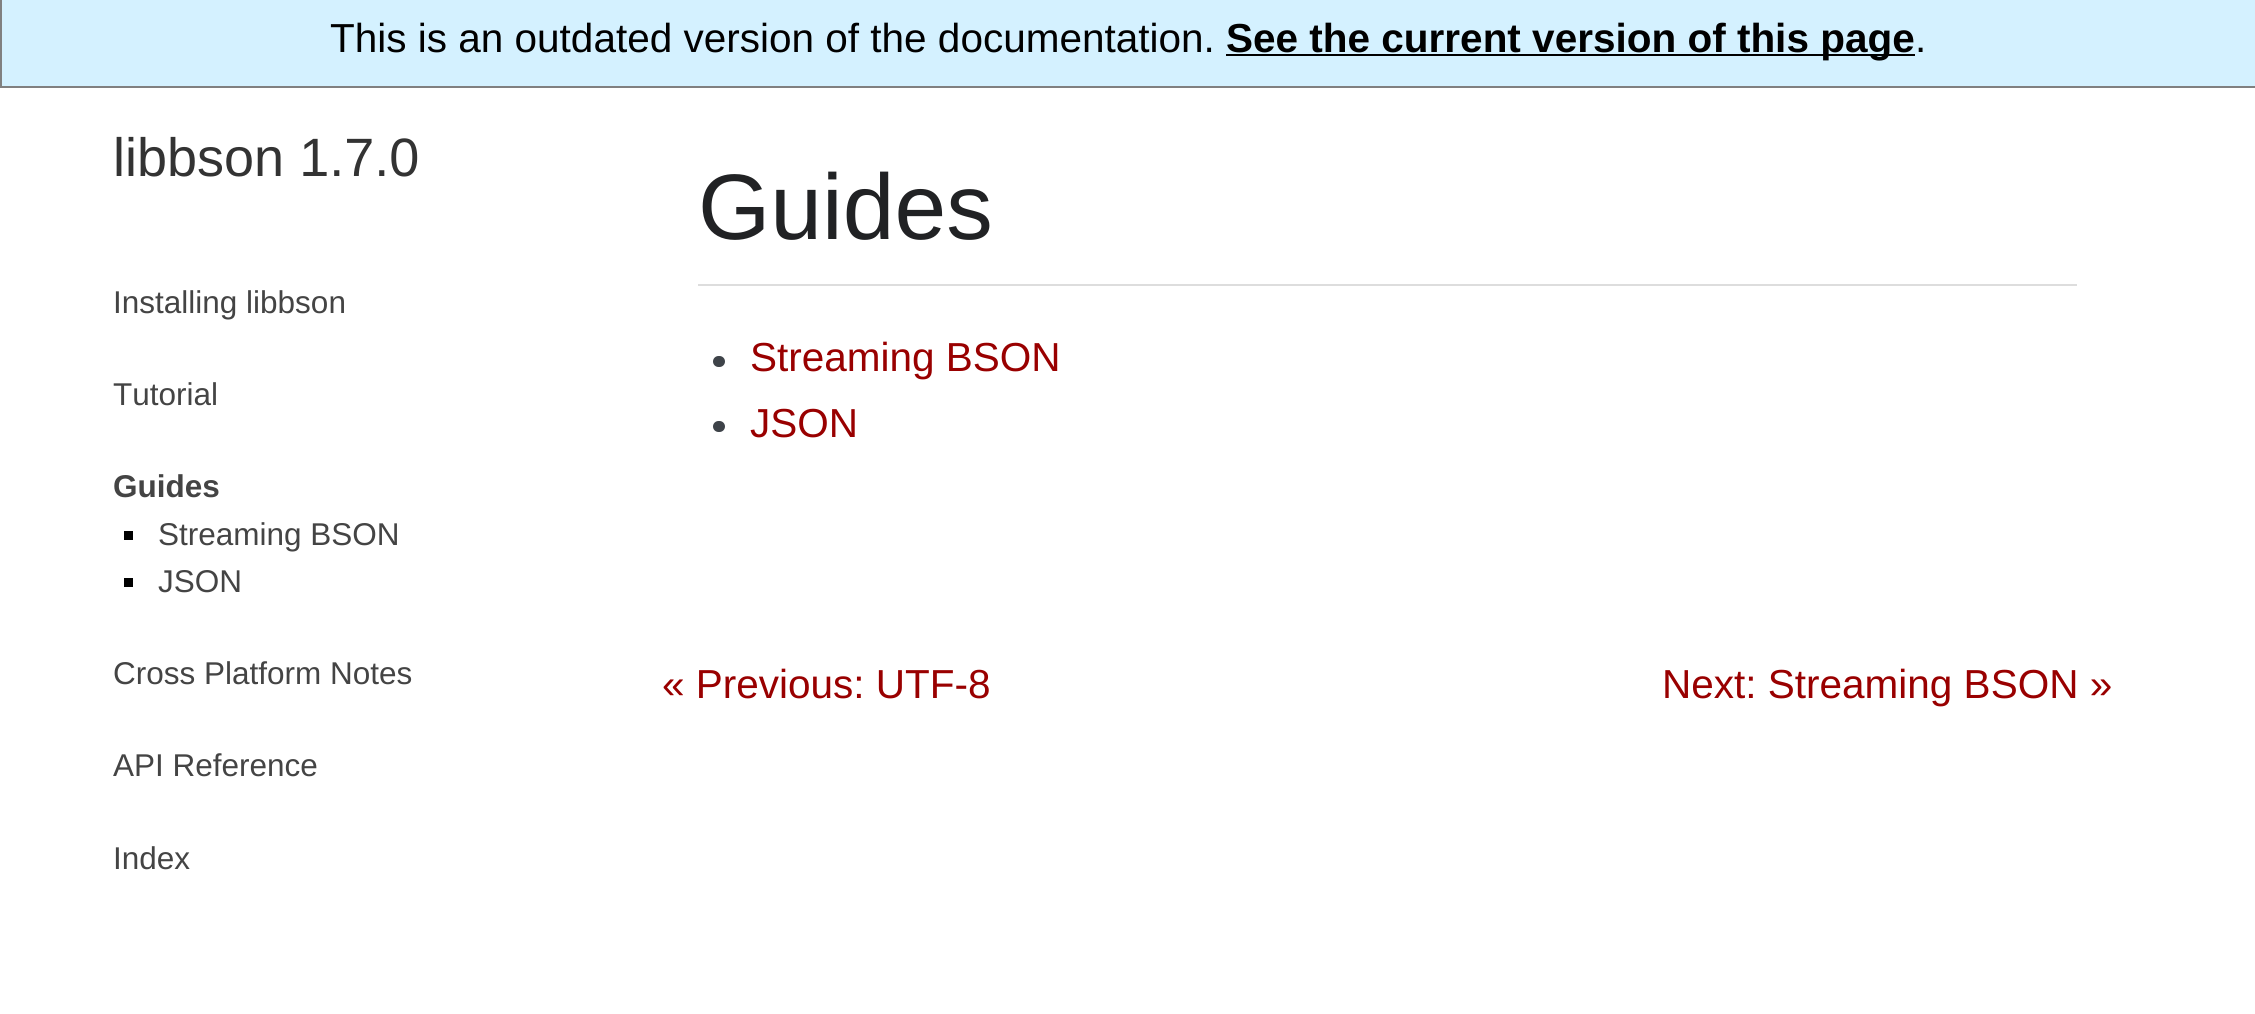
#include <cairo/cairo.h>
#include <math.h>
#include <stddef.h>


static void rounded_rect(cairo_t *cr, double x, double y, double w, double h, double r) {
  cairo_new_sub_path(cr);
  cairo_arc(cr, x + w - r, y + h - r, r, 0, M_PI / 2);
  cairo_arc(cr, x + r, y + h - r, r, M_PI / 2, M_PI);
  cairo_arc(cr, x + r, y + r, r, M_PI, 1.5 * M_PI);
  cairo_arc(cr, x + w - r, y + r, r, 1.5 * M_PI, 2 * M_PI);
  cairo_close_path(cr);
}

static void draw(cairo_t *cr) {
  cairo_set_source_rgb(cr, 1, 1, 1);
  cairo_paint(cr);
  cairo_set_source_rgb(cr, 212 / 255.0, 241 / 255.0, 1);
  cairo_rectangle(cr, 1, -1, 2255, 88);
  cairo_fill_preserve(cr);
  cairo_set_source_rgb(cr, 128 / 255.0, 128 / 255.0, 128 / 255.0);
  cairo_stroke(cr);
  cairo_set_source_rgb(cr, 0, 0, 0);
  cairo_rectangle(cr, 1226, 54, 689, 2);
  cairo_fill(cr);
  cairo_rectangle(cr, 124, 531, 9, 9);
  cairo_fill(cr);
  cairo_rectangle(cr, 124, 578, 9, 9);
  cairo_fill(cr);
  cairo_set_source_rgb(cr, 221 / 255.0, 221 / 255.0, 221 / 255.0);
  cairo_rectangle(cr, 698, 284, 1379, 2);
  cairo_fill(cr);
  cairo_set_source_rgb(cr, 62 / 255.0, 67 / 255.0, 73 / 255.0);
  rounded_rect(cr, 713, 356, 12, 11, 5.5);
  cairo_fill(cr);
  rounded_rect(cr, 713, 421, 12, 11, 5.5);
  cairo_fill(cr);
  cairo_select_font_face(cr, "Liberation Sans", CAIRO_FONT_SLANT_NORMAL, CAIRO_FONT_WEIGHT_NORMAL);
  cairo_set_font_size(cr, 40.5);
  cairo_set_source_rgb(cr, 0, 0, 0);
  cairo_move_to(cr, 330, 52);
  cairo_show_text(cr, "This is an outdated version of the documentation.");
  cairo_select_font_face(cr, "Liberation Sans", CAIRO_FONT_SLANT_NORMAL, CAIRO_FONT_WEIGHT_BOLD);
  cairo_move_to(cr, 1226, 52);
  cairo_show_text(cr, "See the current version of this page");
  cairo_select_font_face(cr, "Liberation Sans", CAIRO_FONT_SLANT_NORMAL, CAIRO_FONT_WEIGHT_NORMAL);
  cairo_move_to(cr, 1915, 52);
  cairo_show_text(cr, ".");
  cairo_set_font_size(cr, 54);
  cairo_set_source_rgb(cr, 51 / 255.0, 51 / 255.0, 51 / 255.0);
  cairo_move_to(cr, 113, 176);
  cairo_show_text(cr, "libbson 1.7.0");
  cairo_set_font_size(cr, 31.5);
  cairo_set_source_rgb(cr, 68 / 255.0, 68 / 255.0, 68 / 255.0);
  cairo_move_to(cr, 113, 313);
  cairo_show_text(cr, "Installing libbson");
  cairo_move_to(cr, 113, 405);
  cairo_show_text(cr, "Tutorial");
  cairo_select_font_face(cr, "Liberation Sans", CAIRO_FONT_SLANT_NORMAL, CAIRO_FONT_WEIGHT_BOLD);
  cairo_move_to(cr, 113, 497);
  cairo_show_text(cr, "Guides");
  cairo_select_font_face(cr, "Liberation Sans", CAIRO_FONT_SLANT_NORMAL, CAIRO_FONT_WEIGHT_NORMAL);
  cairo_move_to(cr, 158, 545);
  cairo_show_text(cr, "Streaming BSON");
  cairo_move_to(cr, 158, 592);
  cairo_show_text(cr, "JSON");
  cairo_move_to(cr, 113, 684);
  cairo_show_text(cr, "Cross Platform Notes");
  cairo_move_to(cr, 113, 776);
  cairo_show_text(cr, "API Reference");
  cairo_move_to(cr, 113, 869);
  cairo_show_text(cr, "Index");
  cairo_set_font_size(cr, 93);
  cairo_set_source_rgb(cr, 33 / 255.0, 34 / 255.0, 36 / 255.0);
  cairo_move_to(cr, 698, 239);
  cairo_show_text(cr, "Guides");
  cairo_set_font_size(cr, 40.5);
  cairo_set_source_rgb(cr, 153 / 255.0, 0, 0);
  cairo_move_to(cr, 750, 371);
  cairo_show_text(cr, "Streaming BSON");
  cairo_move_to(cr, 750, 437);
  cairo_show_text(cr, "JSON");
  cairo_move_to(cr, 662, 698);
  cairo_show_text(cr, "« Previous: UTF-8");
  cairo_move_to(cr, 1662, 698);
  cairo_show_text(cr, "Next: Streaming BSON »");
}

int main(void) {
  cairo_surface_t *surface = cairo_image_surface_create(CAIRO_FORMAT_RGB24, 2255, 1014);
  cairo_t *cr = cairo_create(surface);
  cairo_font_options_t *options = cairo_font_options_create();
  cairo_font_options_set_hint_metrics(options, CAIRO_HINT_METRICS_OFF);
  cairo_font_options_set_hint_style(options, CAIRO_HINT_STYLE_NONE);
  cairo_set_font_options(cr, options);
  cairo_set_miter_limit(cr, 4);
  draw(cr);
  cairo_surface_write_to_png(surface, "out.png");
  cairo_font_options_destroy(options);
  cairo_destroy(cr);
  cairo_surface_destroy(surface);
  return 0;
}
